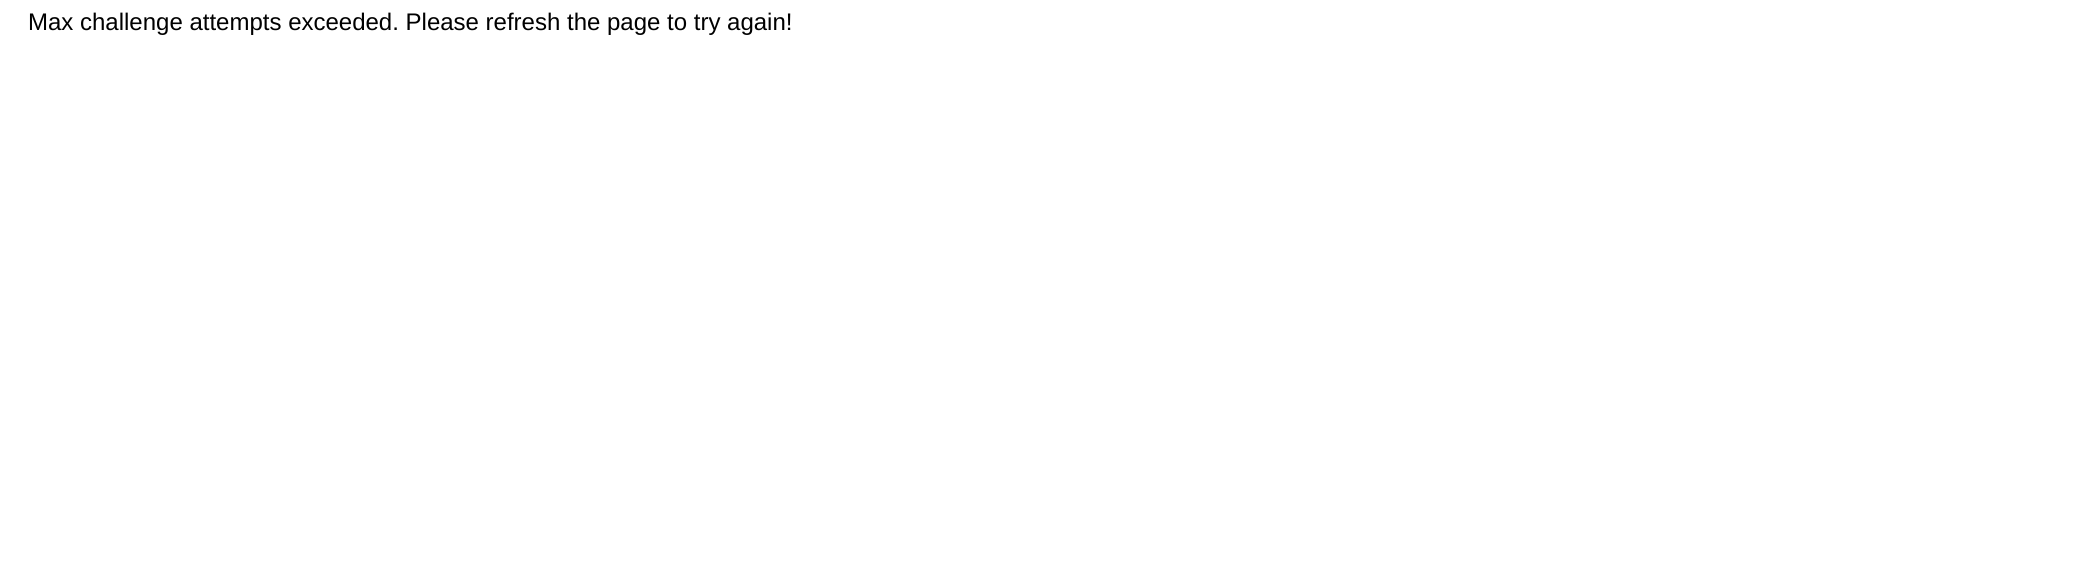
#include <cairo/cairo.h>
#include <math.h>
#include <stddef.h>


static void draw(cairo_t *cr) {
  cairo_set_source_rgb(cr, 1, 1, 1);
  cairo_paint(cr);
  cairo_select_font_face(cr, "Liberation Sans", CAIRO_FONT_SLANT_NORMAL, CAIRO_FONT_WEIGHT_NORMAL);
  cairo_set_font_size(cr, 24);
  cairo_set_source_rgb(cr, 0, 0, 0);
  cairo_move_to(cr, 28, 30);
  cairo_show_text(cr, "Max challenge attempts exceeded. Please refresh the page to try again!");
}

int main(void) {
  cairo_surface_t *surface = cairo_image_surface_create(CAIRO_FORMAT_RGB24, 2076, 581);
  cairo_t *cr = cairo_create(surface);
  cairo_font_options_t *options = cairo_font_options_create();
  cairo_font_options_set_hint_metrics(options, CAIRO_HINT_METRICS_OFF);
  cairo_font_options_set_hint_style(options, CAIRO_HINT_STYLE_NONE);
  cairo_set_font_options(cr, options);
  cairo_set_miter_limit(cr, 4);
  draw(cr);
  cairo_surface_write_to_png(surface, "out.png");
  cairo_font_options_destroy(options);
  cairo_destroy(cr);
  cairo_surface_destroy(surface);
  return 0;
}
